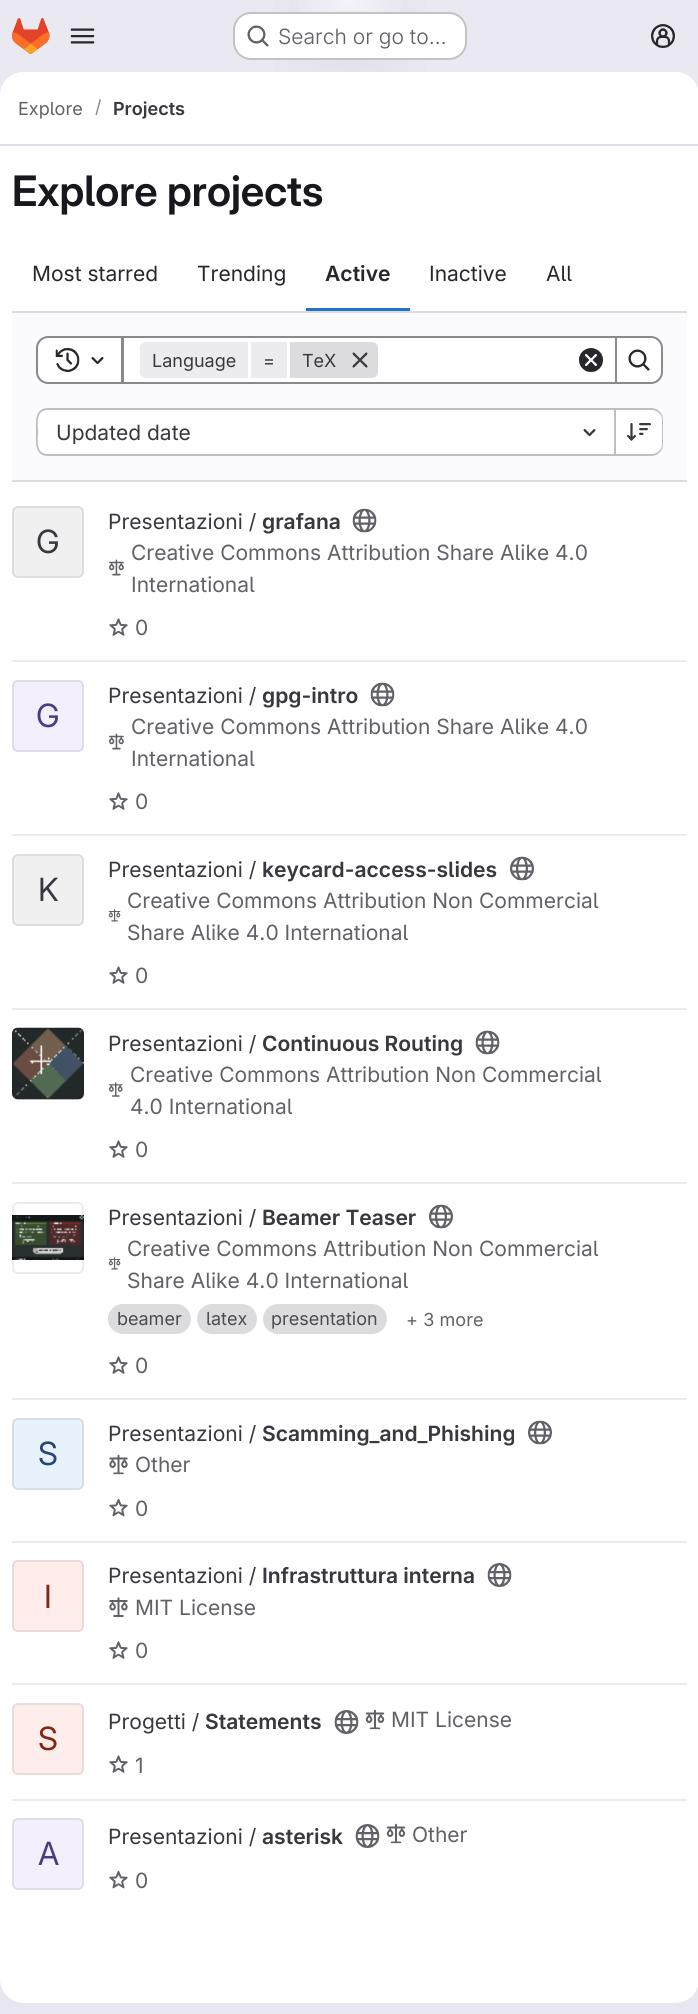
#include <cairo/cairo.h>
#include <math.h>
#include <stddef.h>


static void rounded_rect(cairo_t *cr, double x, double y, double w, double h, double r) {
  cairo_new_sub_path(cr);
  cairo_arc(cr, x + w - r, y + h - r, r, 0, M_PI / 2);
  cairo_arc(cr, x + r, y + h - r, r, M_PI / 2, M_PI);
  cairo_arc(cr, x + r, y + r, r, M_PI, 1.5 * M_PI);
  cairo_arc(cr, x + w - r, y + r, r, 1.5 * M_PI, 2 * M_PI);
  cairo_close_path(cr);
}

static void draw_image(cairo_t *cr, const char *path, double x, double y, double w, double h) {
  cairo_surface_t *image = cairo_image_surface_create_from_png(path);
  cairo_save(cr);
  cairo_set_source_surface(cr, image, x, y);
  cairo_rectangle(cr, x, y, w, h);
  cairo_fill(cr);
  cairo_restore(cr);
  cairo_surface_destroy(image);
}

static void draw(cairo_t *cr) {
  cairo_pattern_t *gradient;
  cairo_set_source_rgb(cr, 1, 1, 1);
  cairo_paint(cr);
  gradient = cairo_pattern_create_linear(532, 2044, 167, -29);
  cairo_pattern_add_color_stop_rgba(gradient, 0, 232 / 255.0, 230 / 255.0, 240 / 255.0, 1);
  cairo_pattern_add_color_stop_rgba(gradient, 0.7, 234 / 255.0, 233 / 255.0, 242 / 255.0, 1);
  cairo_set_source(cr, gradient);
  cairo_pattern_destroy(gradient);
  cairo_rectangle(cr, 0, 0, 698, 2014);
  cairo_fill(cr);
  gradient = cairo_pattern_create_radial(0, 0, 0, 0, 0, 1);
  cairo_pattern_set_matrix(gradient, &(cairo_matrix_t){1.0 / 350, 0, 0, 1.0 / 2015, -1.0 * 350 / 350, -1.0 * 0 / 2015});
  cairo_pattern_add_color_stop_rgba(gradient, 0, 228 / 255.0, 226 / 255.0, 237 / 255.0, 1);
  cairo_pattern_add_color_stop_rgba(gradient, 0.3, 228 / 255.0, 226 / 255.0, 237 / 255.0, 0);
  cairo_set_source(cr, gradient);
  cairo_pattern_destroy(gradient);
  cairo_rectangle(cr, 274, 0, 152, 72);
  cairo_fill(cr);
  gradient = cairo_pattern_create_radial(0, 0, 0, 0, 0, 1);
  cairo_pattern_set_matrix(gradient, &(cairo_matrix_t){1.0 / 350, 0, 0, 1.0 / 2015, -1.0 * 350 / 350, -1.0 * 0 / 2015});
  cairo_pattern_add_color_stop_rgba(gradient, 0, 228 / 255.0, 226 / 255.0, 236 / 255.0, 1);
  cairo_pattern_add_color_stop_rgba(gradient, 0.21, 228 / 255.0, 226 / 255.0, 236 / 255.0, 0);
  cairo_set_source(cr, gradient);
  cairo_pattern_destroy(gradient);
  cairo_rectangle(cr, 320, 21, 61, 47);
  cairo_fill(cr);
  gradient = cairo_pattern_create_radial(350, 0, 0, 350, 0, 2045);
  cairo_pattern_add_color_stop_rgba(gradient, 0, 1, 1, 1, 0.6);
  cairo_pattern_add_color_stop_rgba(gradient, 0.03, 1, 1, 1, 0);
  cairo_set_source(cr, gradient);
  cairo_pattern_destroy(gradient);
  cairo_rectangle(cr, 298, 0, 104, 12);
  cairo_fill(cr);
  draw_image(cr, "images/1.png", 12, 18, 38, 36);
  draw_image(cr, "images/2.png", 70, 28, 25, 16);
  cairo_set_source_rgb(cr, 1, 1, 1);
  rounded_rect(cr, 233, 12, 234, 48, 18);
  cairo_fill(cr);
  rounded_rect(cr, 234, 13, 232, 46, 17);
  cairo_set_source_rgba(cr, 5 / 255.0, 5 / 255.0, 6 / 255.0, 0.24);
  cairo_stroke(cr);
  draw_image(cr, "images/3.png", 247, 25, 22, 22);
  draw_image(cr, "images/4.png", 651, 24, 24, 24);
  cairo_set_source_rgb(cr, 1, 1, 1);
  rounded_rect(cr, 0, 72, 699, 1931, 24);
  cairo_fill(cr);
  cairo_new_path(cr);
  cairo_move_to(cr, 24, 72);
  cairo_line_to(cr, 675, 72);
  cairo_curve_to(cr, 688.5, 72, 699, 82.5, 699, 96);
  cairo_line_to(cr, 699, 146);
  cairo_line_to(cr, 0, 146);
  cairo_line_to(cr, 0, 96);
  cairo_curve_to(cr, 0, 82.5, 10.5, 72, 24, 72);
  cairo_close_path(cr);
  cairo_fill(cr);
  cairo_set_source_rgb(cr, 225 / 255.0, 223 / 255.0, 236 / 255.0);
  cairo_rectangle(cr, 0, 144, 698, 2);
  cairo_fill(cr);
  cairo_set_source_rgb(cr, 31 / 255.0, 117 / 255.0, 203 / 255.0);
  cairo_rectangle(cr, 306, 308, 104, 3);
  cairo_fill(cr);
  cairo_set_source_rgb(cr, 251 / 255.0, 250 / 255.0, 253 / 255.0);
  cairo_rectangle(cr, 12, 313, 675, 167);
  cairo_fill(cr);
  cairo_set_source_rgb(cr, 220 / 255.0, 220 / 255.0, 222 / 255.0);
  cairo_rectangle(cr, 12, 311, 675, 2);
  cairo_fill(cr);
  cairo_rectangle(cr, 12, 480, 675, 2);
  cairo_fill(cr);
  cairo_set_source_rgb(cr, 1, 1, 1);
  cairo_rectangle(cr, 123, 337, 493, 46);
  cairo_fill_preserve(cr);
  cairo_set_source_rgb(cr, 137 / 255.0, 136 / 255.0, 141 / 255.0);
  cairo_stroke(cr);
  cairo_set_source_rgb(cr, 1, 1, 1);
  cairo_new_path(cr);
  cairo_move_to(cr, 48, 337);
  cairo_line_to(cr, 122, 337);
  cairo_line_to(cr, 122, 383);
  cairo_line_to(cr, 48, 383);
  cairo_curve_to(cr, 42, 383, 37, 378, 37, 372);
  cairo_line_to(cr, 37, 348);
  cairo_curve_to(cr, 37, 342, 42, 337, 48, 337);
  cairo_close_path(cr);
  cairo_fill_preserve(cr);
  cairo_set_source_rgb(cr, 137 / 255.0, 136 / 255.0, 141 / 255.0);
  cairo_stroke(cr);
  draw_image(cr, "images/5.png", 55, 348, 25, 24);
  draw_image(cr, "images/6.png", 91, 357, 13, 8);
  cairo_set_source_rgb(cr, 236 / 255.0, 236 / 255.0, 239 / 255.0);
  cairo_new_path(cr);
  cairo_move_to(cr, 146, 342);
  cairo_line_to(cr, 248, 342);
  cairo_line_to(cr, 248, 378);
  cairo_line_to(cr, 146, 378);
  cairo_curve_to(cr, 142.5, 378, 140, 375.5, 140, 372);
  cairo_line_to(cr, 140, 348);
  cairo_curve_to(cr, 140, 344.5, 142.5, 342, 146, 342);
  cairo_close_path(cr);
  cairo_fill(cr);
  cairo_rectangle(cr, 251, 342, 36, 36);
  cairo_fill(cr);
  cairo_set_source_rgb(cr, 220 / 255.0, 220 / 255.0, 222 / 255.0);
  cairo_new_path(cr);
  cairo_move_to(cr, 290, 342);
  cairo_line_to(cr, 372, 342);
  cairo_curve_to(cr, 375.5, 342, 378, 344.5, 378, 348);
  cairo_line_to(cr, 378, 372);
  cairo_curve_to(cr, 378, 375.5, 375.5, 378, 372, 378);
  cairo_line_to(cr, 290, 378);
  cairo_close_path(cr);
  cairo_fill(cr);
  draw_image(cr, "images/7.png", 352, 352, 16, 16);
  draw_image(cr, "images/8.png", 579, 348, 24, 24);
  cairo_set_source_rgb(cr, 1, 1, 1);
  cairo_new_path(cr);
  cairo_move_to(cr, 616, 337);
  cairo_line_to(cr, 651, 337);
  cairo_curve_to(cr, 657, 337, 662, 342, 662, 348);
  cairo_line_to(cr, 662, 372);
  cairo_curve_to(cr, 662, 378, 657, 383, 651, 383);
  cairo_line_to(cr, 616, 383);
  cairo_close_path(cr);
  cairo_fill_preserve(cr);
  cairo_set_source_rgb(cr, 137 / 255.0, 136 / 255.0, 141 / 255.0);
  cairo_stroke(cr);
  draw_image(cr, "images/9.png", 628, 349, 22, 22);
  cairo_set_source_rgb(cr, 1, 1, 1);
  cairo_new_path(cr);
  cairo_move_to(cr, 49, 410);
  cairo_line_to(cr, 614, 410);
  cairo_line_to(cr, 614, 455);
  cairo_line_to(cr, 49, 455);
  cairo_curve_to(cr, 43, 455, 38, 450, 38, 444);
  cairo_line_to(cr, 38, 421);
  cairo_curve_to(cr, 38, 415, 43, 410, 49, 410);
  cairo_close_path(cr);
  cairo_fill(cr);
  cairo_set_source_rgb(cr, 191 / 255.0, 191 / 255.0, 195 / 255.0);
  cairo_set_fill_rule(cr, CAIRO_FILL_RULE_EVEN_ODD);
  cairo_new_path(cr);
  cairo_move_to(cr, 48, 408);
  cairo_line_to(cr, 614, 408);
  cairo_line_to(cr, 614, 456);
  cairo_line_to(cr, 48, 456);
  cairo_curve_to(cr, 34, 456, 36, 441, 36, 432);
  cairo_curve_to(cr, 36, 423, 34, 408, 48, 408);
  cairo_close_path(cr);
  cairo_move_to(cr, 48, 410);
  cairo_line_to(cr, 614, 410);
  cairo_line_to(cr, 614, 454);
  cairo_line_to(cr, 48, 454);
  cairo_curve_to(cr, 35, 454, 38, 440, 38, 432);
  cairo_curve_to(cr, 38, 424, 35, 410, 48, 410);
  cairo_close_path(cr);
  cairo_fill(cr);
  draw_image(cr, "images/10.png", 583, 429, 13, 8);
  cairo_set_source_rgb(cr, 1, 1, 1);
  cairo_new_path(cr);
  cairo_move_to(cr, 615, 410);
  cairo_line_to(cr, 651, 410);
  cairo_curve_to(cr, 657, 410, 662, 415, 662, 421);
  cairo_line_to(cr, 662, 444);
  cairo_curve_to(cr, 662, 450, 657, 455, 651, 455);
  cairo_line_to(cr, 615, 455);
  cairo_close_path(cr);
  cairo_fill(cr);
  cairo_set_source_rgb(cr, 191 / 255.0, 191 / 255.0, 195 / 255.0);
  cairo_new_path(cr);
  cairo_move_to(cr, 615, 408);
  cairo_line_to(cr, 651, 408);
  cairo_curve_to(cr, 658, 408, 663, 413, 663, 420);
  cairo_line_to(cr, 663, 444);
  cairo_curve_to(cr, 663, 451, 658, 456, 651, 456);
  cairo_line_to(cr, 615, 456);
  cairo_close_path(cr);
  cairo_move_to(cr, 615, 410);
  cairo_line_to(cr, 651, 410);
  cairo_curve_to(cr, 657, 410, 662, 414, 662, 420);
  cairo_line_to(cr, 662, 444);
  cairo_curve_to(cr, 662, 450, 657, 454, 651, 454);
  cairo_line_to(cr, 615, 454);
  cairo_close_path(cr);
  cairo_fill(cr);
  cairo_rectangle(cr, 614, 408, 2, 48);
  cairo_fill(cr);
  draw_image(cr, "images/11.png", 627, 423, 24, 18);
  cairo_set_source_rgb(cr, 236 / 255.0, 236 / 255.0, 239 / 255.0);
  cairo_rectangle(cr, 12, 660, 675, 2);
  cairo_fill(cr);
  cairo_set_source_rgb(cr, 240 / 255.0, 240 / 255.0, 241 / 255.0);
  rounded_rect(cr, 12, 506, 72, 72, 6);
  cairo_fill(cr);
  rounded_rect(cr, 13, 507, 70, 70, 5);
  cairo_set_source_rgba(cr, 5 / 255.0, 5 / 255.0, 6 / 255.0, 0.08);
  cairo_stroke(cr);
  draw_image(cr, "images/12.png", 352, 508, 25, 25);
  draw_image(cr, "images/13.png", 109, 559, 15, 17);
  draw_image(cr, "images/14.png", 109, 618, 19, 18);
  cairo_set_source_rgb(cr, 236 / 255.0, 236 / 255.0, 239 / 255.0);
  cairo_rectangle(cr, 12, 834, 675, 2);
  cairo_fill(cr);
  cairo_set_source_rgb(cr, 243 / 255.0, 239 / 255.0, 252 / 255.0);
  rounded_rect(cr, 12, 680, 72, 72, 6);
  cairo_fill(cr);
  rounded_rect(cr, 13, 681, 70, 70, 5);
  cairo_set_source_rgba(cr, 5 / 255.0, 5 / 255.0, 6 / 255.0, 0.08);
  cairo_stroke(cr);
  draw_image(cr, "images/15.png", 370, 682, 25, 25);
  draw_image(cr, "images/13.png", 109, 733, 15, 17);
  draw_image(cr, "images/14.png", 109, 792, 19, 18);
  cairo_set_source_rgb(cr, 236 / 255.0, 236 / 255.0, 239 / 255.0);
  cairo_rectangle(cr, 12, 1008, 675, 2);
  cairo_fill(cr);
  cairo_set_source_rgb(cr, 240 / 255.0, 240 / 255.0, 241 / 255.0);
  rounded_rect(cr, 12, 854, 72, 72, 6);
  cairo_fill(cr);
  rounded_rect(cr, 13, 855, 70, 70, 5);
  cairo_set_source_rgba(cr, 5 / 255.0, 5 / 255.0, 6 / 255.0, 0.08);
  cairo_stroke(cr);
  draw_image(cr, "images/16.png", 510, 856, 24, 25);
  draw_image(cr, "images/17.png", 108, 909, 13, 13);
  draw_image(cr, "images/14.png", 109, 966, 19, 18);
  cairo_set_source_rgb(cr, 236 / 255.0, 236 / 255.0, 239 / 255.0);
  cairo_rectangle(cr, 12, 1182, 675, 2);
  cairo_fill(cr);
  draw_image(cr, "images/18.png", 12, 1027, 72, 73);
  rounded_rect(cr, 13, 1029, 70, 70, 5);
  cairo_set_source_rgba(cr, 5 / 255.0, 5 / 255.0, 6 / 255.0, 0.08);
  cairo_stroke(cr);
  draw_image(cr, "images/19.png", 475, 1030, 25, 25);
  draw_image(cr, "images/20.png", 109, 1082, 14, 15);
  draw_image(cr, "images/14.png", 109, 1140, 19, 18);
  cairo_set_source_rgb(cr, 236 / 255.0, 236 / 255.0, 239 / 255.0);
  cairo_rectangle(cr, 12, 1398, 675, 2);
  cairo_fill(cr);
  draw_image(cr, "images/21.png", 12, 1215, 72, 45);
  rounded_rect(cr, 13, 1203, 70, 70, 5);
  cairo_set_source_rgba(cr, 5 / 255.0, 5 / 255.0, 6 / 255.0, 0.08);
  cairo_stroke(cr);
  draw_image(cr, "images/16.png", 429, 1204, 24, 25);
  draw_image(cr, "images/17.png", 108, 1257, 13, 13);
  cairo_set_source_rgb(cr, 220 / 255.0, 220 / 255.0, 222 / 255.0);
  rounded_rect(cr, 108, 1304, 83, 30, 15);
  cairo_fill(cr);
  rounded_rect(cr, 197, 1304, 60, 30, 15);
  cairo_fill(cr);
  rounded_rect(cr, 263, 1304, 124, 30, 15);
  cairo_fill(cr);
  draw_image(cr, "images/14.png", 109, 1356, 19, 18);
  cairo_set_source_rgb(cr, 236 / 255.0, 236 / 255.0, 239 / 255.0);
  cairo_rectangle(cr, 12, 1541, 675, 2);
  cairo_fill(cr);
  cairo_set_source_rgb(cr, 231 / 255.0, 242 / 255.0, 252 / 255.0);
  rounded_rect(cr, 12, 1418, 72, 72, 6);
  cairo_fill(cr);
  rounded_rect(cr, 13, 1419, 70, 70, 5);
  cairo_set_source_rgba(cr, 5 / 255.0, 5 / 255.0, 6 / 255.0, 0.08);
  cairo_stroke(cr);
  draw_image(cr, "images/16.png", 528, 1420, 24, 25);
  draw_image(cr, "images/22.png", 109, 1454, 19, 21);
  draw_image(cr, "images/23.png", 109, 1498, 19, 19);
  cairo_set_source_rgb(cr, 236 / 255.0, 236 / 255.0, 239 / 255.0);
  cairo_rectangle(cr, 12, 1683, 675, 2);
  cairo_fill(cr);
  cairo_set_source_rgb(cr, 254 / 255.0, 237 / 255.0, 235 / 255.0);
  rounded_rect(cr, 12, 1560, 72, 72, 6);
  cairo_fill(cr);
  rounded_rect(cr, 13, 1561, 70, 70, 5);
  cairo_set_source_rgba(cr, 5 / 255.0, 5 / 255.0, 6 / 255.0, 0.08);
  cairo_stroke(cr);
  draw_image(cr, "images/24.png", 487, 1563, 25, 24);
  draw_image(cr, "images/25.png", 109, 1597, 19, 20);
  draw_image(cr, "images/14.png", 109, 1641, 19, 18);
  cairo_set_source_rgb(cr, 236 / 255.0, 236 / 255.0, 239 / 255.0);
  cairo_rectangle(cr, 12, 1799, 675, 2);
  cairo_fill(cr);
  cairo_set_source_rgb(cr, 254 / 255.0, 237 / 255.0, 235 / 255.0);
  rounded_rect(cr, 12, 1703, 72, 72, 6);
  cairo_fill(cr);
  rounded_rect(cr, 13, 1704, 70, 70, 5);
  cairo_set_source_rgba(cr, 5 / 255.0, 5 / 255.0, 6 / 255.0, 0.08);
  cairo_stroke(cr);
  draw_image(cr, "images/26.png", 334, 1710, 25, 24);
  draw_image(cr, "images/27.png", 365, 1709, 20, 21);
  draw_image(cr, "images/14.png", 109, 1755, 19, 18);
  cairo_set_source_rgb(cr, 243 / 255.0, 239 / 255.0, 252 / 255.0);
  rounded_rect(cr, 12, 1818, 72, 72, 6);
  cairo_fill(cr);
  rounded_rect(cr, 13, 1819, 70, 70, 5);
  cairo_set_source_rgba(cr, 5 / 255.0, 5 / 255.0, 6 / 255.0, 0.08);
  cairo_stroke(cr);
  draw_image(cr, "images/28.png", 355, 1824, 25, 24);
  draw_image(cr, "images/27.png", 386, 1823, 20, 21);
  draw_image(cr, "images/29.png", 109, 1870, 19, 19);
  cairo_select_font_face(cr, "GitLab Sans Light", CAIRO_FONT_SLANT_NORMAL, CAIRO_FONT_WEIGHT_NORMAL);
  cairo_set_font_size(cr, 21);
  cairo_set_source_rgb(cr, 98 / 255.0, 97 / 255.0, 104 / 255.0);
  cairo_move_to(cr, 278, 44);
  cairo_show_text(cr, "Search or go to…");
  cairo_select_font_face(cr, "GitLab Sans", CAIRO_FONT_SLANT_NORMAL, CAIRO_FONT_WEIGHT_NORMAL);
  cairo_set_font_size(cr, 18);
  cairo_move_to(cr, 18, 115);
  cairo_show_text(cr, "Explore");
  cairo_set_source_rgb(cr, 137 / 255.0, 136 / 255.0, 141 / 255.0);
  cairo_move_to(cr, 95, 113);
  cairo_show_text(cr, "/");
  cairo_select_font_face(cr, "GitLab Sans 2 SemiBold", CAIRO_FONT_SLANT_NORMAL, CAIRO_FONT_WEIGHT_NORMAL);
  cairo_set_source_rgb(cr, 58 / 255.0, 56 / 255.0, 63 / 255.0);
  cairo_move_to(cr, 113, 115);
  cairo_show_text(cr, "Projects");
  cairo_select_font_face(cr, "GitLab Sans SemiBold", CAIRO_FONT_SLANT_NORMAL, CAIRO_FONT_WEIGHT_NORMAL);
  cairo_set_font_size(cr, 42);
  cairo_set_source_rgb(cr, 24 / 255.0, 23 / 255.0, 29 / 255.0);
  cairo_move_to(cr, 12, 206);
  cairo_show_text(cr, "Explore projects");
  cairo_select_font_face(cr, "GitLab Sans", CAIRO_FONT_SLANT_NORMAL, CAIRO_FONT_WEIGHT_NORMAL);
  cairo_set_font_size(cr, 21);
  cairo_set_source_rgb(cr, 40 / 255.0, 39 / 255.0, 45 / 255.0);
  cairo_move_to(cr, 32, 281);
  cairo_show_text(cr, "Most starred");
  cairo_move_to(cr, 197, 281);
  cairo_show_text(cr, "Trending");
  cairo_select_font_face(cr, "GitLab Sans 2 SemiBold", CAIRO_FONT_SLANT_NORMAL, CAIRO_FONT_WEIGHT_NORMAL);
  cairo_move_to(cr, 325, 281);
  cairo_show_text(cr, "Active");
  cairo_select_font_face(cr, "GitLab Sans", CAIRO_FONT_SLANT_NORMAL, CAIRO_FONT_WEIGHT_NORMAL);
  cairo_move_to(cr, 429, 281);
  cairo_show_text(cr, "Inactive");
  cairo_move_to(cr, 546, 281);
  cairo_show_text(cr, "All");
  cairo_set_font_size(cr, 18);
  cairo_set_source_rgb(cr, 58 / 255.0, 56 / 255.0, 63 / 255.0);
  cairo_move_to(cr, 152, 367);
  cairo_show_text(cr, "Language");
  cairo_move_to(cr, 263, 367);
  cairo_show_text(cr, "=");
  cairo_move_to(cr, 302, 367);
  cairo_show_text(cr, "TeX");
  cairo_save(cr);
  cairo_set_fill_rule(cr, CAIRO_FILL_RULE_WINDING);
  cairo_rectangle(cr, 56, 420, 135, 24);
  cairo_clip(cr);
  cairo_set_font_size(cr, 21);
  cairo_move_to(cr, 56, 440);
  cairo_show_text(cr, "Updated date");
  cairo_restore(cr);
  cairo_select_font_face(cr, "GitLab Sans 2", CAIRO_FONT_SLANT_NORMAL, CAIRO_FONT_WEIGHT_NORMAL);
  cairo_set_font_size(cr, 32);
  cairo_move_to(cr, 36, 553);
  cairo_show_text(cr, "G");
  cairo_select_font_face(cr, "GitLab Sans", CAIRO_FONT_SLANT_NORMAL, CAIRO_FONT_WEIGHT_NORMAL);
  cairo_set_font_size(cr, 21);
  cairo_move_to(cr, 108, 529);
  cairo_show_text(cr, "Presentazioni /");
  cairo_select_font_face(cr, "GitLab Sans 2 SemiBold", CAIRO_FONT_SLANT_NORMAL, CAIRO_FONT_WEIGHT_NORMAL);
  cairo_move_to(cr, 262, 529);
  cairo_show_text(cr, "grafana");
  cairo_select_font_face(cr, "GitLab Sans", CAIRO_FONT_SLANT_NORMAL, CAIRO_FONT_WEIGHT_NORMAL);
  cairo_set_source_rgb(cr, 98 / 255.0, 97 / 255.0, 104 / 255.0);
  cairo_move_to(cr, 131, 560);
  cairo_show_text(cr, "Creative Commons Attribution Share Alike 4.0");
  cairo_move_to(cr, 131, 592);
  cairo_show_text(cr, "International");
  cairo_move_to(cr, 135, 635);
  cairo_show_text(cr, "0");
  cairo_select_font_face(cr, "GitLab Sans 2", CAIRO_FONT_SLANT_NORMAL, CAIRO_FONT_WEIGHT_NORMAL);
  cairo_set_font_size(cr, 32);
  cairo_set_source_rgb(cr, 73 / 255.0, 60 / 255.0, 131 / 255.0);
  cairo_move_to(cr, 36, 727);
  cairo_show_text(cr, "G");
  cairo_select_font_face(cr, "GitLab Sans", CAIRO_FONT_SLANT_NORMAL, CAIRO_FONT_WEIGHT_NORMAL);
  cairo_set_font_size(cr, 21);
  cairo_set_source_rgb(cr, 58 / 255.0, 56 / 255.0, 63 / 255.0);
  cairo_move_to(cr, 108, 703);
  cairo_show_text(cr, "Presentazioni /");
  cairo_select_font_face(cr, "GitLab Sans 2 SemiBold", CAIRO_FONT_SLANT_NORMAL, CAIRO_FONT_WEIGHT_NORMAL);
  cairo_move_to(cr, 262, 703);
  cairo_show_text(cr, "gpg-intro");
  cairo_select_font_face(cr, "GitLab Sans", CAIRO_FONT_SLANT_NORMAL, CAIRO_FONT_WEIGHT_NORMAL);
  cairo_set_source_rgb(cr, 98 / 255.0, 97 / 255.0, 104 / 255.0);
  cairo_move_to(cr, 131, 734);
  cairo_show_text(cr, "Creative Commons Attribution Share Alike 4.0");
  cairo_move_to(cr, 131, 766);
  cairo_show_text(cr, "International");
  cairo_move_to(cr, 135, 809);
  cairo_show_text(cr, "0");
  cairo_select_font_face(cr, "GitLab Sans 2", CAIRO_FONT_SLANT_NORMAL, CAIRO_FONT_WEIGHT_NORMAL);
  cairo_set_font_size(cr, 32);
  cairo_set_source_rgb(cr, 58 / 255.0, 56 / 255.0, 63 / 255.0);
  cairo_move_to(cr, 38, 901);
  cairo_show_text(cr, "K");
  cairo_select_font_face(cr, "GitLab Sans", CAIRO_FONT_SLANT_NORMAL, CAIRO_FONT_WEIGHT_NORMAL);
  cairo_set_font_size(cr, 21);
  cairo_move_to(cr, 108, 877);
  cairo_show_text(cr, "Presentazioni /");
  cairo_select_font_face(cr, "GitLab Sans 2 SemiBold", CAIRO_FONT_SLANT_NORMAL, CAIRO_FONT_WEIGHT_NORMAL);
  cairo_move_to(cr, 262, 877);
  cairo_show_text(cr, "keycard-access-slides");
  cairo_select_font_face(cr, "GitLab Sans", CAIRO_FONT_SLANT_NORMAL, CAIRO_FONT_WEIGHT_NORMAL);
  cairo_set_source_rgb(cr, 98 / 255.0, 97 / 255.0, 104 / 255.0);
  cairo_move_to(cr, 127, 908);
  cairo_show_text(cr, "Creative Commons Attribution Non Commercial");
  cairo_move_to(cr, 127, 940);
  cairo_show_text(cr, "Share Alike 4.0 International");
  cairo_move_to(cr, 135, 983);
  cairo_show_text(cr, "0");
  cairo_set_source_rgb(cr, 58 / 255.0, 56 / 255.0, 63 / 255.0);
  cairo_move_to(cr, 108, 1051);
  cairo_show_text(cr, "Presentazioni /");
  cairo_select_font_face(cr, "GitLab Sans 2 SemiBold", CAIRO_FONT_SLANT_NORMAL, CAIRO_FONT_WEIGHT_NORMAL);
  cairo_move_to(cr, 262, 1051);
  cairo_show_text(cr, "Continuous Routing");
  cairo_select_font_face(cr, "GitLab Sans", CAIRO_FONT_SLANT_NORMAL, CAIRO_FONT_WEIGHT_NORMAL);
  cairo_set_source_rgb(cr, 98 / 255.0, 97 / 255.0, 104 / 255.0);
  cairo_move_to(cr, 130, 1082);
  cairo_show_text(cr, "Creative Commons Attribution Non Commercial");
  cairo_move_to(cr, 130, 1114);
  cairo_show_text(cr, "4.0 International");
  cairo_move_to(cr, 135, 1157);
  cairo_show_text(cr, "0");
  cairo_set_source_rgb(cr, 58 / 255.0, 56 / 255.0, 63 / 255.0);
  cairo_move_to(cr, 108, 1225);
  cairo_show_text(cr, "Presentazioni /");
  cairo_select_font_face(cr, "GitLab Sans 2 SemiBold", CAIRO_FONT_SLANT_NORMAL, CAIRO_FONT_WEIGHT_NORMAL);
  cairo_move_to(cr, 262, 1225);
  cairo_show_text(cr, "Beamer Teaser");
  cairo_select_font_face(cr, "GitLab Sans", CAIRO_FONT_SLANT_NORMAL, CAIRO_FONT_WEIGHT_NORMAL);
  cairo_set_source_rgb(cr, 98 / 255.0, 97 / 255.0, 104 / 255.0);
  cairo_move_to(cr, 127, 1256);
  cairo_show_text(cr, "Creative Commons Attribution Non Commercial");
  cairo_move_to(cr, 127, 1288);
  cairo_show_text(cr, "Share Alike 4.0 International");
  cairo_set_font_size(cr, 18);
  cairo_set_source_rgb(cr, 76 / 255.0, 75 / 255.0, 81 / 255.0);
  cairo_move_to(cr, 117, 1325);
  cairo_show_text(cr, "beamer");
  cairo_move_to(cr, 206, 1325);
  cairo_show_text(cr, "latex");
  cairo_move_to(cr, 271, 1325);
  cairo_show_text(cr, "presentation");
  cairo_set_source_rgb(cr, 98 / 255.0, 97 / 255.0, 104 / 255.0);
  cairo_move_to(cr, 406, 1326);
  cairo_show_text(cr, "+ 3 more");
  cairo_set_font_size(cr, 21);
  cairo_move_to(cr, 135, 1373);
  cairo_show_text(cr, "0");
  cairo_select_font_face(cr, "GitLab Sans 2", CAIRO_FONT_SLANT_NORMAL, CAIRO_FONT_WEIGHT_NORMAL);
  cairo_set_font_size(cr, 32);
  cairo_set_source_rgb(cr, 40 / 255.0, 71 / 255.0, 121 / 255.0);
  cairo_move_to(cr, 38, 1465);
  cairo_show_text(cr, "S");
  cairo_select_font_face(cr, "GitLab Sans", CAIRO_FONT_SLANT_NORMAL, CAIRO_FONT_WEIGHT_NORMAL);
  cairo_set_font_size(cr, 21);
  cairo_set_source_rgb(cr, 58 / 255.0, 56 / 255.0, 63 / 255.0);
  cairo_move_to(cr, 108, 1441);
  cairo_show_text(cr, "Presentazioni /");
  cairo_select_font_face(cr, "GitLab Sans 2 SemiBold", CAIRO_FONT_SLANT_NORMAL, CAIRO_FONT_WEIGHT_NORMAL);
  cairo_move_to(cr, 262, 1441);
  cairo_show_text(cr, "Scamming_and_Phishing");
  cairo_select_font_face(cr, "GitLab Sans", CAIRO_FONT_SLANT_NORMAL, CAIRO_FONT_WEIGHT_NORMAL);
  cairo_set_source_rgb(cr, 98 / 255.0, 97 / 255.0, 104 / 255.0);
  cairo_move_to(cr, 135, 1472);
  cairo_show_text(cr, "Other");
  cairo_move_to(cr, 135, 1516);
  cairo_show_text(cr, "0");
  cairo_select_font_face(cr, "GitLab Sans 2", CAIRO_FONT_SLANT_NORMAL, CAIRO_FONT_WEIGHT_NORMAL);
  cairo_set_font_size(cr, 32);
  cairo_set_source_rgb(cr, 129 / 255.0, 39 / 255.0, 19 / 255.0);
  cairo_move_to(cr, 44, 1608);
  cairo_show_text(cr, "I");
  cairo_select_font_face(cr, "GitLab Sans", CAIRO_FONT_SLANT_NORMAL, CAIRO_FONT_WEIGHT_NORMAL);
  cairo_set_font_size(cr, 21);
  cairo_set_source_rgb(cr, 58 / 255.0, 56 / 255.0, 63 / 255.0);
  cairo_move_to(cr, 108, 1583);
  cairo_show_text(cr, "Presentazioni /");
  cairo_select_font_face(cr, "GitLab Sans 2 SemiBold", CAIRO_FONT_SLANT_NORMAL, CAIRO_FONT_WEIGHT_NORMAL);
  cairo_move_to(cr, 262, 1583);
  cairo_show_text(cr, "Infrastruttura interna");
  cairo_select_font_face(cr, "GitLab Sans", CAIRO_FONT_SLANT_NORMAL, CAIRO_FONT_WEIGHT_NORMAL);
  cairo_set_source_rgb(cr, 98 / 255.0, 97 / 255.0, 104 / 255.0);
  cairo_move_to(cr, 135, 1615);
  cairo_show_text(cr, "MIT License");
  cairo_move_to(cr, 135, 1658);
  cairo_show_text(cr, "0");
  cairo_select_font_face(cr, "GitLab Sans 2", CAIRO_FONT_SLANT_NORMAL, CAIRO_FONT_WEIGHT_NORMAL);
  cairo_set_font_size(cr, 32);
  cairo_set_source_rgb(cr, 129 / 255.0, 39 / 255.0, 19 / 255.0);
  cairo_move_to(cr, 38, 1750);
  cairo_show_text(cr, "S");
  cairo_select_font_face(cr, "GitLab Sans", CAIRO_FONT_SLANT_NORMAL, CAIRO_FONT_WEIGHT_NORMAL);
  cairo_set_font_size(cr, 21);
  cairo_set_source_rgb(cr, 58 / 255.0, 56 / 255.0, 63 / 255.0);
  cairo_move_to(cr, 108, 1729);
  cairo_show_text(cr, "Progetti /");
  cairo_select_font_face(cr, "GitLab Sans 2 SemiBold", CAIRO_FONT_SLANT_NORMAL, CAIRO_FONT_WEIGHT_NORMAL);
  cairo_move_to(cr, 205, 1729);
  cairo_show_text(cr, "Statements");
  cairo_select_font_face(cr, "GitLab Sans", CAIRO_FONT_SLANT_NORMAL, CAIRO_FONT_WEIGHT_NORMAL);
  cairo_set_source_rgb(cr, 98 / 255.0, 97 / 255.0, 104 / 255.0);
  cairo_move_to(cr, 391, 1727);
  cairo_show_text(cr, "MIT License");
  cairo_move_to(cr, 135, 1773);
  cairo_show_text(cr, "1");
  cairo_select_font_face(cr, "GitLab Sans 2", CAIRO_FONT_SLANT_NORMAL, CAIRO_FONT_WEIGHT_NORMAL);
  cairo_set_font_size(cr, 32);
  cairo_set_source_rgb(cr, 73 / 255.0, 60 / 255.0, 131 / 255.0);
  cairo_move_to(cr, 38, 1865);
  cairo_show_text(cr, "A");
  cairo_select_font_face(cr, "GitLab Sans", CAIRO_FONT_SLANT_NORMAL, CAIRO_FONT_WEIGHT_NORMAL);
  cairo_set_font_size(cr, 21);
  cairo_set_source_rgb(cr, 58 / 255.0, 56 / 255.0, 63 / 255.0);
  cairo_move_to(cr, 108, 1844);
  cairo_show_text(cr, "Presentazioni /");
  cairo_select_font_face(cr, "GitLab Sans 2 SemiBold", CAIRO_FONT_SLANT_NORMAL, CAIRO_FONT_WEIGHT_NORMAL);
  cairo_move_to(cr, 262, 1844);
  cairo_show_text(cr, "asterisk");
  cairo_select_font_face(cr, "GitLab Sans", CAIRO_FONT_SLANT_NORMAL, CAIRO_FONT_WEIGHT_NORMAL);
  cairo_set_source_rgb(cr, 98 / 255.0, 97 / 255.0, 104 / 255.0);
  cairo_move_to(cr, 412, 1842);
  cairo_show_text(cr, "Other");
  cairo_move_to(cr, 135, 1888);
  cairo_show_text(cr, "0");
}

int main(void) {
  cairo_surface_t *surface = cairo_image_surface_create(CAIRO_FORMAT_RGB24, 698, 2014);
  cairo_t *cr = cairo_create(surface);
  cairo_font_options_t *options = cairo_font_options_create();
  cairo_font_options_set_hint_metrics(options, CAIRO_HINT_METRICS_OFF);
  cairo_font_options_set_hint_style(options, CAIRO_HINT_STYLE_NONE);
  cairo_set_font_options(cr, options);
  cairo_set_miter_limit(cr, 4);
  draw(cr);
  cairo_surface_write_to_png(surface, "out.png");
  cairo_font_options_destroy(options);
  cairo_destroy(cr);
  cairo_surface_destroy(surface);
  return 0;
}
